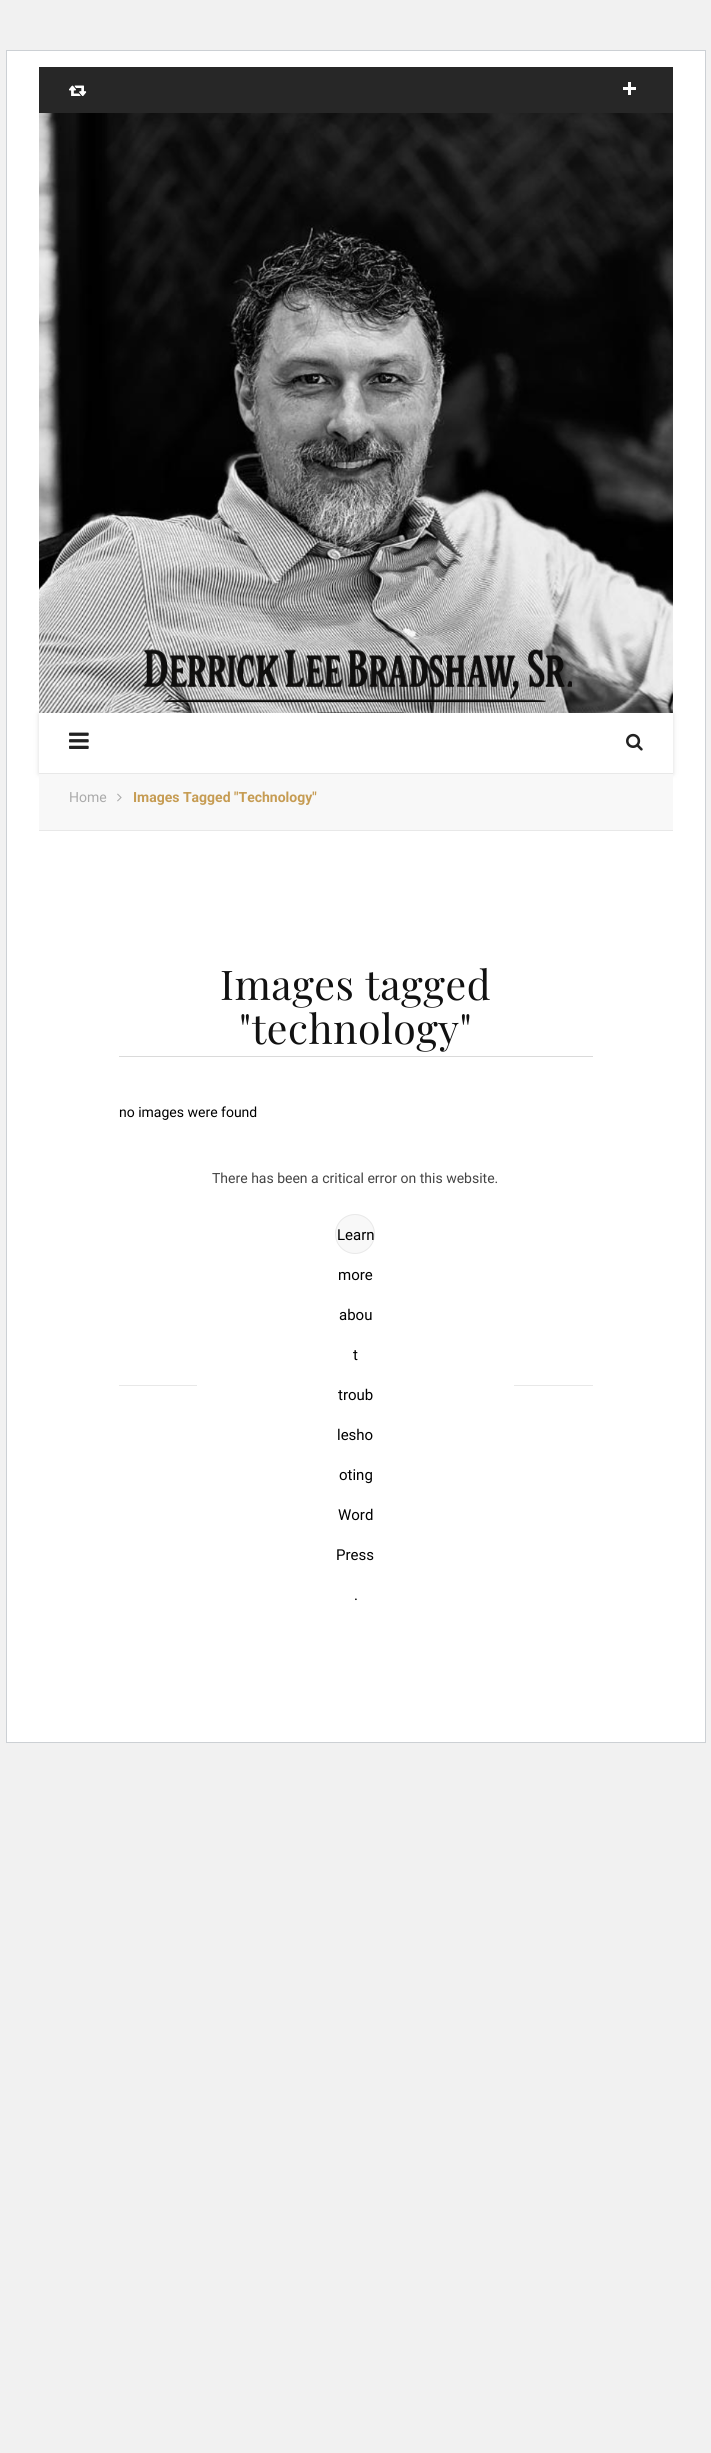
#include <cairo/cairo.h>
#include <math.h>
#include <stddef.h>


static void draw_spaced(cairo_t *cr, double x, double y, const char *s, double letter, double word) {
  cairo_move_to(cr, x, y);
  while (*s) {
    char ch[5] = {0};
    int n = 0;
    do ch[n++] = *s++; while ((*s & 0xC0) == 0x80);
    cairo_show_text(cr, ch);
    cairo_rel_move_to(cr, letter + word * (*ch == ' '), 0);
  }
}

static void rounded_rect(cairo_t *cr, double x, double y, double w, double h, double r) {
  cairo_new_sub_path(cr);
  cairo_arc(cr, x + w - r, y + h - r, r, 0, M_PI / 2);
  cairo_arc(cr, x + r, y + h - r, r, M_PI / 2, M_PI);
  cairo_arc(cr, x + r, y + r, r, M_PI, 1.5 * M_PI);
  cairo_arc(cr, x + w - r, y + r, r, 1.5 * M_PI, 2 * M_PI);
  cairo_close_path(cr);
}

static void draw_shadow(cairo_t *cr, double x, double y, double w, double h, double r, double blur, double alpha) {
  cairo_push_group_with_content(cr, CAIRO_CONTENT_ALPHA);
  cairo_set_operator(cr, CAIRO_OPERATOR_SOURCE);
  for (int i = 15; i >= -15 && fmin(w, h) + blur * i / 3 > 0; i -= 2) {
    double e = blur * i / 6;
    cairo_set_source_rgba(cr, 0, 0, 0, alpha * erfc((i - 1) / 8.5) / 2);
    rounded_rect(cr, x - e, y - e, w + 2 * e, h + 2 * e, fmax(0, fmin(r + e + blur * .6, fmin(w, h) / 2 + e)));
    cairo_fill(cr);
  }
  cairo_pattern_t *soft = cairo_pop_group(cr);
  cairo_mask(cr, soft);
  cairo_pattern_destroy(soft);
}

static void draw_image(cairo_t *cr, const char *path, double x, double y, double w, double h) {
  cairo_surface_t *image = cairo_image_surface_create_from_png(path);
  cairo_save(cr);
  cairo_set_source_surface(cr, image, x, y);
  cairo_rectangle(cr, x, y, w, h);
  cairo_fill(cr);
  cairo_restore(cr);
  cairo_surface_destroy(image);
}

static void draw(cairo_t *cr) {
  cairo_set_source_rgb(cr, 241 / 255.0, 241 / 255.0, 241 / 255.0);
  cairo_paint(cr);
  cairo_set_source_rgb(cr, 1, 1, 1);
  cairo_rectangle(cr, 6.5, 50.5, 699, 1692);
  cairo_fill_preserve(cr);
  cairo_set_source_rgb(cr, 204 / 255.0, 208 / 255.0, 212 / 255.0);
  cairo_set_line_width(cr, 1);
  cairo_stroke(cr);
  cairo_set_source_rgb(cr, 39 / 255.0, 39 / 255.0, 39 / 255.0);
  cairo_rectangle(cr, 39, 67, 634, 46);
  cairo_fill(cr);
  draw_image(cr, "images/1.png", 69, 85, 18, 11);
  cairo_set_source_rgb(cr, 1, 1, 1);
  cairo_rectangle(cr, 623, 87, 13, 3);
  cairo_fill(cr);
  cairo_rectangle(cr, 628, 82, 3, 13);
  cairo_fill(cr);
  draw_image(cr, "images/2.png", 69, 85, 18, 11);
  draw_image(cr, "images/3.png", 39, 113, 634, 600);
  draw_image(cr, "images/4.png", 143, 649, 429, 54);
  cairo_save(cr);
  cairo_set_fill_rule(cr, CAIRO_FILL_RULE_EVEN_ODD);
  cairo_new_path(cr);
  cairo_move_to(cr, 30, 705);
  cairo_line_to(cr, 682, 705);
  cairo_line_to(cr, 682, 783);
  cairo_line_to(cr, 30, 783);
  cairo_close_path(cr);
  cairo_move_to(cr, 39, 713);
  cairo_line_to(cr, 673, 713);
  cairo_line_to(cr, 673, 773);
  cairo_line_to(cr, 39, 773);
  cairo_close_path(cr);
  cairo_clip(cr);
  cairo_set_source_rgb(cr, 185 / 255.0, 185 / 255.0, 185 / 255.0);
  draw_shadow(cr, 39, 714, 634, 60, 0, 2.5, 0.5);
  cairo_restore(cr);
  draw_image(cr, "images/5.png", 69, 732, 20, 17);
  draw_image(cr, "images/6.png", 626, 733, 17, 18);
  cairo_set_source_rgb(cr, 248 / 255.0, 248 / 255.0, 248 / 255.0);
  cairo_rectangle(cr, 39, 774, 634, 56);
  cairo_fill(cr);
  cairo_set_source_rgb(cr, 232 / 255.0, 232 / 255.0, 232 / 255.0);
  cairo_rectangle(cr, 39, 773, 634, 1);
  cairo_fill(cr);
  cairo_rectangle(cr, 39, 830, 634, 1);
  cairo_fill(cr);
  draw_image(cr, "images/7.png", 117, 793, 5, 9);
  cairo_set_source_rgb(cr, 218 / 255.0, 218 / 255.0, 218 / 255.0);
  cairo_rectangle(cr, 119, 1056, 474, 1);
  cairo_fill(cr);
  cairo_set_source_rgb(cr, 232 / 255.0, 232 / 255.0, 232 / 255.0);
  cairo_rectangle(cr, 119, 1385, 78, 1);
  cairo_fill(cr);
  cairo_set_source_rgb(cr, 248 / 255.0, 248 / 255.0, 248 / 255.0);
  cairo_arc(cr, 355, 1234, 19.5, 0, 2 * M_PI);
  cairo_fill_preserve(cr);
  cairo_set_source_rgb(cr, 232 / 255.0, 232 / 255.0, 232 / 255.0);
  cairo_stroke(cr);
  cairo_rectangle(cr, 514, 1385, 79, 1);
  cairo_fill(cr);
  cairo_select_font_face(cr, "Roboto", CAIRO_FONT_SLANT_NORMAL, CAIRO_FONT_WEIGHT_NORMAL);
  cairo_set_font_size(cr, 14);
  cairo_set_source_rgb(cr, 170 / 255.0, 170 / 255.0, 170 / 255.0);
  cairo_move_to(cr, 69, 802);
  cairo_show_text(cr, "Home");
  cairo_select_font_face(cr, "Roboto", CAIRO_FONT_SLANT_NORMAL, CAIRO_FONT_WEIGHT_BOLD);
  cairo_set_source_rgb(cr, 198 / 255.0, 156 / 255.0, 83 / 255.0);
  cairo_move_to(cr, 133, 802);
  cairo_show_text(cr, "Images Tagged \"Technology\"");
  cairo_select_font_face(cr, "Playfair Display", CAIRO_FONT_SLANT_NORMAL, CAIRO_FONT_WEIGHT_NORMAL);
  cairo_set_font_size(cr, 41);
  cairo_set_source_rgb(cr, 17 / 255.0, 17 / 255.0, 17 / 255.0);
  draw_spaced(cr, 220, 1000, "Images tagged", 0.5, 0);
  draw_spaced(cr, 239, 1044, "\"technology\"", 0.5, 0);
  cairo_select_font_face(cr, "Roboto", CAIRO_FONT_SLANT_NORMAL, CAIRO_FONT_WEIGHT_NORMAL);
  cairo_set_font_size(cr, 14);
  cairo_set_source_rgb(cr, 0, 0, 0);
  cairo_move_to(cr, 119, 1117);
  cairo_show_text(cr, "no images were found");
  cairo_set_source_rgb(cr, 68 / 255.0, 68 / 255.0, 68 / 255.0);
  cairo_move_to(cr, 212, 1183);
  cairo_show_text(cr, "There has been a critical error on this website.");
  cairo_set_font_size(cr, 15);
  cairo_set_source_rgb(cr, 0, 0, 0);
  cairo_move_to(cr, 337, 1240);
  cairo_show_text(cr, "Learn");
  cairo_move_to(cr, 338, 1280);
  cairo_show_text(cr, "more");
  cairo_move_to(cr, 339, 1320);
  cairo_show_text(cr, "abou");
  cairo_move_to(cr, 353, 1360);
  cairo_show_text(cr, "t");
  cairo_move_to(cr, 338, 1400);
  cairo_show_text(cr, "troub");
  cairo_move_to(cr, 337, 1440);
  cairo_show_text(cr, "lesho");
  cairo_move_to(cr, 339, 1480);
  cairo_show_text(cr, "oting");
  cairo_move_to(cr, 338, 1520);
  cairo_show_text(cr, "Word");
  cairo_move_to(cr, 336, 1560);
  cairo_show_text(cr, "Press");
  cairo_move_to(cr, 354, 1600);
  cairo_show_text(cr, ".");
}

int main(void) {
  cairo_surface_t *surface = cairo_image_surface_create(CAIRO_FORMAT_RGB24, 711, 2453);
  cairo_t *cr = cairo_create(surface);
  cairo_font_options_t *options = cairo_font_options_create();
  cairo_font_options_set_hint_metrics(options, CAIRO_HINT_METRICS_OFF);
  cairo_font_options_set_hint_style(options, CAIRO_HINT_STYLE_NONE);
  cairo_set_font_options(cr, options);
  cairo_set_miter_limit(cr, 4);
  draw(cr);
  cairo_surface_write_to_png(surface, "out.png");
  cairo_font_options_destroy(options);
  cairo_destroy(cr);
  cairo_surface_destroy(surface);
  return 0;
}
